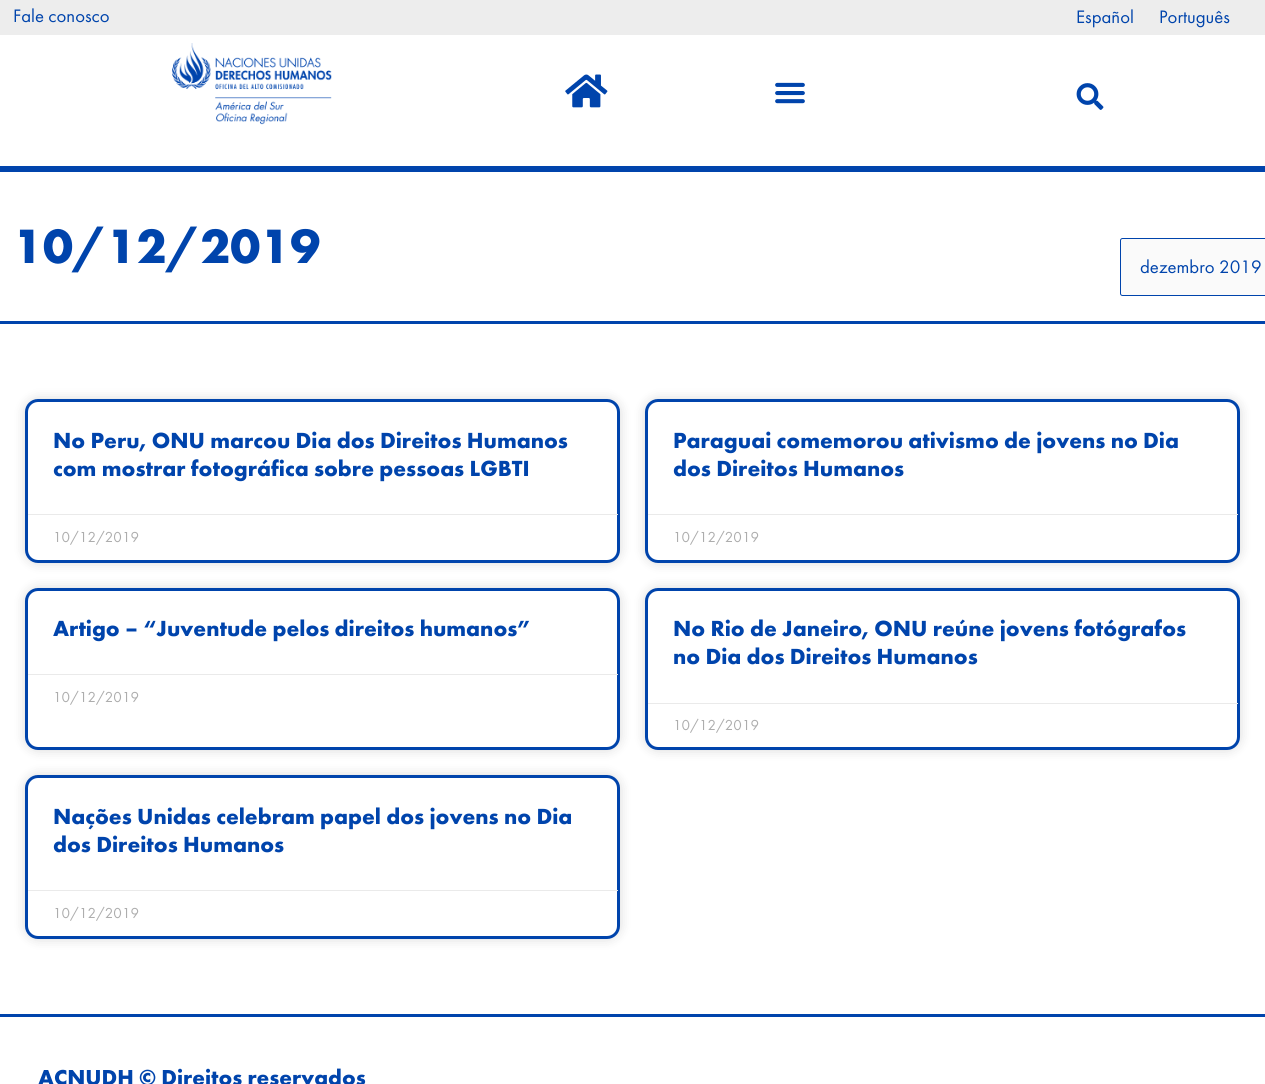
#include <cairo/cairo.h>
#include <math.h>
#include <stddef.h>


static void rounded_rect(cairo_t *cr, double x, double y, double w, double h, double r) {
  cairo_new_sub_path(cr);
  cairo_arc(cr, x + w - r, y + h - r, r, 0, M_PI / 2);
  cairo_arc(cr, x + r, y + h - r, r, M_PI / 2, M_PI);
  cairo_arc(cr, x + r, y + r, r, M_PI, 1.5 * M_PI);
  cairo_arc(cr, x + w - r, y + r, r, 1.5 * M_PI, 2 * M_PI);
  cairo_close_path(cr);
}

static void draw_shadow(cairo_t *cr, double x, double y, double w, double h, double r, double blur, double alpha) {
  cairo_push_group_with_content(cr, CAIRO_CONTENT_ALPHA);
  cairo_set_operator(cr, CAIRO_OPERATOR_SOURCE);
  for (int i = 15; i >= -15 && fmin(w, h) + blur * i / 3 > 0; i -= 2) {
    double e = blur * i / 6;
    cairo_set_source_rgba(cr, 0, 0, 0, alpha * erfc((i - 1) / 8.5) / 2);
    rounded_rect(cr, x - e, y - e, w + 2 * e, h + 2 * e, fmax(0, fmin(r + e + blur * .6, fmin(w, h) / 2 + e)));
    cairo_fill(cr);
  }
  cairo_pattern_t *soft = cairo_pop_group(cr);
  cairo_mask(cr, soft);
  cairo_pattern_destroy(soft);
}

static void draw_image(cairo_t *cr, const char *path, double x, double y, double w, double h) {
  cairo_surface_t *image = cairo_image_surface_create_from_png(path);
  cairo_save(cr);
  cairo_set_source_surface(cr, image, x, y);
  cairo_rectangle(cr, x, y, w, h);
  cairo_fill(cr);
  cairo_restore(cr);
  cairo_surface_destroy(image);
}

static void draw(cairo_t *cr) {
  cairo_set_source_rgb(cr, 1, 1, 1);
  cairo_paint(cr);
  cairo_set_source_rgb(cr, 237 / 255.0, 237 / 255.0, 237 / 255.0);
  cairo_rectangle(cr, 0, 0, 1265, 35);
  cairo_fill(cr);
  cairo_set_source_rgb(cr, 0, 68 / 255.0, 172 / 255.0);
  cairo_rectangle(cr, 0, 166, 1265, 6);
  cairo_fill(cr);
  draw_image(cr, "images/1.png", 172, 43, 160, 82);
  draw_image(cr, "images/2.png", 565, 74, 43, 34);
  draw_image(cr, "images/3.png", 775, 82, 30, 22);
  draw_image(cr, "images/4.png", 1076, 83, 28, 27);
  cairo_rectangle(cr, 0, 321, 1265, 3);
  cairo_fill(cr);
  cairo_set_source_rgb(cr, 250 / 255.0, 250 / 255.0, 250 / 255.0);
  rounded_rect(cr, 1120.5, 238.5, 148, 57, 2);
  cairo_fill_preserve(cr);
  cairo_set_source_rgb(cr, 0, 68 / 255.0, 172 / 255.0);
  cairo_set_line_width(cr, 1);
  cairo_stroke(cr);
  cairo_set_source_rgb(cr, 0, 0, 0);
  draw_shadow(cr, 25, 399, 595, 164, 13, 6, 0.15);
  cairo_set_source_rgb(cr, 1, 1, 1);
  rounded_rect(cr, 26.5, 400.5, 592, 161, 11.5);
  cairo_fill_preserve(cr);
  cairo_set_source_rgb(cr, 0, 68 / 255.0, 172 / 255.0);
  cairo_set_line_width(cr, 3);
  cairo_stroke(cr);
  cairo_set_source_rgb(cr, 234 / 255.0, 234 / 255.0, 234 / 255.0);
  cairo_rectangle(cr, 28, 514, 590, 1);
  cairo_fill(cr);
  cairo_set_source_rgb(cr, 0, 0, 0);
  draw_shadow(cr, 645, 399, 595, 164, 13, 6, 0.15);
  cairo_set_source_rgb(cr, 1, 1, 1);
  rounded_rect(cr, 646.5, 400.5, 592, 161, 11.5);
  cairo_fill_preserve(cr);
  cairo_set_source_rgb(cr, 0, 68 / 255.0, 172 / 255.0);
  cairo_stroke(cr);
  cairo_set_source_rgb(cr, 234 / 255.0, 234 / 255.0, 234 / 255.0);
  cairo_rectangle(cr, 648, 514, 590, 1);
  cairo_fill(cr);
  cairo_set_source_rgb(cr, 0, 0, 0);
  draw_shadow(cr, 25, 588, 595, 162, 13, 6, 0.15);
  cairo_set_source_rgb(cr, 1, 1, 1);
  rounded_rect(cr, 26.5, 589.5, 592, 159, 11.5);
  cairo_fill_preserve(cr);
  cairo_set_source_rgb(cr, 0, 68 / 255.0, 172 / 255.0);
  cairo_stroke(cr);
  cairo_set_source_rgb(cr, 234 / 255.0, 234 / 255.0, 234 / 255.0);
  cairo_rectangle(cr, 28, 674, 590, 1);
  cairo_fill(cr);
  cairo_set_source_rgb(cr, 0, 0, 0);
  draw_shadow(cr, 645, 588, 595, 162, 13, 6, 0.15);
  cairo_set_source_rgb(cr, 1, 1, 1);
  rounded_rect(cr, 646.5, 589.5, 592, 159, 11.5);
  cairo_fill_preserve(cr);
  cairo_set_source_rgb(cr, 0, 68 / 255.0, 172 / 255.0);
  cairo_stroke(cr);
  cairo_set_source_rgb(cr, 234 / 255.0, 234 / 255.0, 234 / 255.0);
  cairo_rectangle(cr, 648, 703, 590, 1);
  cairo_fill(cr);
  cairo_set_source_rgb(cr, 0, 0, 0);
  draw_shadow(cr, 25, 775, 595, 164, 13, 6, 0.15);
  cairo_set_source_rgb(cr, 1, 1, 1);
  rounded_rect(cr, 26.5, 776.5, 592, 161, 11.5);
  cairo_fill_preserve(cr);
  cairo_set_source_rgb(cr, 0, 68 / 255.0, 172 / 255.0);
  cairo_stroke(cr);
  cairo_set_source_rgb(cr, 234 / 255.0, 234 / 255.0, 234 / 255.0);
  cairo_rectangle(cr, 28, 890, 590, 1);
  cairo_fill(cr);
  cairo_set_source_rgb(cr, 0, 68 / 255.0, 172 / 255.0);
  cairo_rectangle(cr, 0, 1014, 1265, 3);
  cairo_fill(cr);
  cairo_select_font_face(cr, "Futura PT", CAIRO_FONT_SLANT_NORMAL, CAIRO_FONT_WEIGHT_NORMAL);
  cairo_set_font_size(cr, 18.75);
  cairo_move_to(cr, 13, 22);
  cairo_show_text(cr, "Fale conosco");
  cairo_move_to(cr, 1076, 23);
  cairo_show_text(cr, "Español");
  cairo_move_to(cr, 1159, 23);
  cairo_show_text(cr, "Português");
  cairo_select_font_face(cr, "Futura PT", CAIRO_FONT_SLANT_NORMAL, CAIRO_FONT_WEIGHT_BOLD);
  cairo_set_font_size(cr, 50);
  cairo_move_to(cr, 13, 263);
  cairo_show_text(cr, "10/12/2019");
  cairo_select_font_face(cr, "Futura PT", CAIRO_FONT_SLANT_NORMAL, CAIRO_FONT_WEIGHT_NORMAL);
  cairo_set_font_size(cr, 18.75);
  cairo_move_to(cr, 1140, 273);
  cairo_show_text(cr, "dezembro 2019");
  cairo_select_font_face(cr, "Futura PT", CAIRO_FONT_SLANT_NORMAL, CAIRO_FONT_WEIGHT_BOLD);
  cairo_set_font_size(cr, 22.7);
  cairo_move_to(cr, 53, 448);
  cairo_show_text(cr, "No Peru, ONU marcou Dia dos Direitos Humanos");
  cairo_move_to(cr, 53, 476);
  cairo_show_text(cr, "com mostrar fotográfica sobre pessoas LGBTI");
  cairo_select_font_face(cr, "Futura PT", CAIRO_FONT_SLANT_NORMAL, CAIRO_FONT_WEIGHT_NORMAL);
  cairo_set_font_size(cr, 15);
  cairo_set_source_rgb(cr, 173 / 255.0, 173 / 255.0, 173 / 255.0);
  cairo_move_to(cr, 53, 542);
  cairo_show_text(cr, "10/12/2019");
  cairo_select_font_face(cr, "Futura PT", CAIRO_FONT_SLANT_NORMAL, CAIRO_FONT_WEIGHT_BOLD);
  cairo_set_font_size(cr, 22.7);
  cairo_set_source_rgb(cr, 0, 68 / 255.0, 172 / 255.0);
  cairo_move_to(cr, 673, 448);
  cairo_show_text(cr, "Paraguai comemorou ativismo de jovens no Dia");
  cairo_move_to(cr, 673, 476);
  cairo_show_text(cr, "dos Direitos Humanos");
  cairo_select_font_face(cr, "Futura PT", CAIRO_FONT_SLANT_NORMAL, CAIRO_FONT_WEIGHT_NORMAL);
  cairo_set_font_size(cr, 15);
  cairo_set_source_rgb(cr, 173 / 255.0, 173 / 255.0, 173 / 255.0);
  cairo_move_to(cr, 673, 542);
  cairo_show_text(cr, "10/12/2019");
  cairo_select_font_face(cr, "Futura PT", CAIRO_FONT_SLANT_NORMAL, CAIRO_FONT_WEIGHT_BOLD);
  cairo_set_font_size(cr, 22.7);
  cairo_set_source_rgb(cr, 0, 68 / 255.0, 172 / 255.0);
  cairo_move_to(cr, 53, 636);
  cairo_show_text(cr, "Artigo – “Juventude pelos direitos humanos”");
  cairo_select_font_face(cr, "Futura PT", CAIRO_FONT_SLANT_NORMAL, CAIRO_FONT_WEIGHT_NORMAL);
  cairo_set_font_size(cr, 15);
  cairo_set_source_rgb(cr, 173 / 255.0, 173 / 255.0, 173 / 255.0);
  cairo_move_to(cr, 53, 702);
  cairo_show_text(cr, "10/12/2019");
  cairo_select_font_face(cr, "Futura PT", CAIRO_FONT_SLANT_NORMAL, CAIRO_FONT_WEIGHT_BOLD);
  cairo_set_font_size(cr, 22.7);
  cairo_set_source_rgb(cr, 0, 68 / 255.0, 172 / 255.0);
  cairo_move_to(cr, 673, 636);
  cairo_show_text(cr, "No Rio de Janeiro, ONU reúne jovens fotógrafos");
  cairo_move_to(cr, 673, 664);
  cairo_show_text(cr, "no Dia dos Direitos Humanos");
  cairo_select_font_face(cr, "Futura PT", CAIRO_FONT_SLANT_NORMAL, CAIRO_FONT_WEIGHT_NORMAL);
  cairo_set_font_size(cr, 15);
  cairo_set_source_rgb(cr, 173 / 255.0, 173 / 255.0, 173 / 255.0);
  cairo_move_to(cr, 673, 730);
  cairo_show_text(cr, "10/12/2019");
  cairo_select_font_face(cr, "Futura PT", CAIRO_FONT_SLANT_NORMAL, CAIRO_FONT_WEIGHT_BOLD);
  cairo_set_font_size(cr, 22.7);
  cairo_set_source_rgb(cr, 0, 68 / 255.0, 172 / 255.0);
  cairo_move_to(cr, 53, 824);
  cairo_show_text(cr, "Nações Unidas celebram papel dos jovens no Dia");
  cairo_move_to(cr, 53, 852);
  cairo_show_text(cr, "dos Direitos Humanos");
  cairo_select_font_face(cr, "Futura PT", CAIRO_FONT_SLANT_NORMAL, CAIRO_FONT_WEIGHT_NORMAL);
  cairo_set_font_size(cr, 15);
  cairo_set_source_rgb(cr, 173 / 255.0, 173 / 255.0, 173 / 255.0);
  cairo_move_to(cr, 53, 918);
  cairo_show_text(cr, "10/12/2019");
  cairo_select_font_face(cr, "Futura PT", CAIRO_FONT_SLANT_NORMAL, CAIRO_FONT_WEIGHT_BOLD);
  cairo_set_font_size(cr, 22.5);
  cairo_set_source_rgb(cr, 0, 68 / 255.0, 172 / 255.0);
  cairo_move_to(cr, 38, 1085);
  cairo_show_text(cr, "ACNUDH © Direitos reservados");
}

int main(void) {
  cairo_surface_t *surface = cairo_image_surface_create(CAIRO_FORMAT_RGB24, 1265, 1084);
  cairo_t *cr = cairo_create(surface);
  cairo_font_options_t *options = cairo_font_options_create();
  cairo_font_options_set_hint_metrics(options, CAIRO_HINT_METRICS_OFF);
  cairo_font_options_set_hint_style(options, CAIRO_HINT_STYLE_NONE);
  cairo_set_font_options(cr, options);
  cairo_set_miter_limit(cr, 4);
  draw(cr);
  cairo_surface_write_to_png(surface, "out.png");
  cairo_font_options_destroy(options);
  cairo_destroy(cr);
  cairo_surface_destroy(surface);
  return 0;
}
